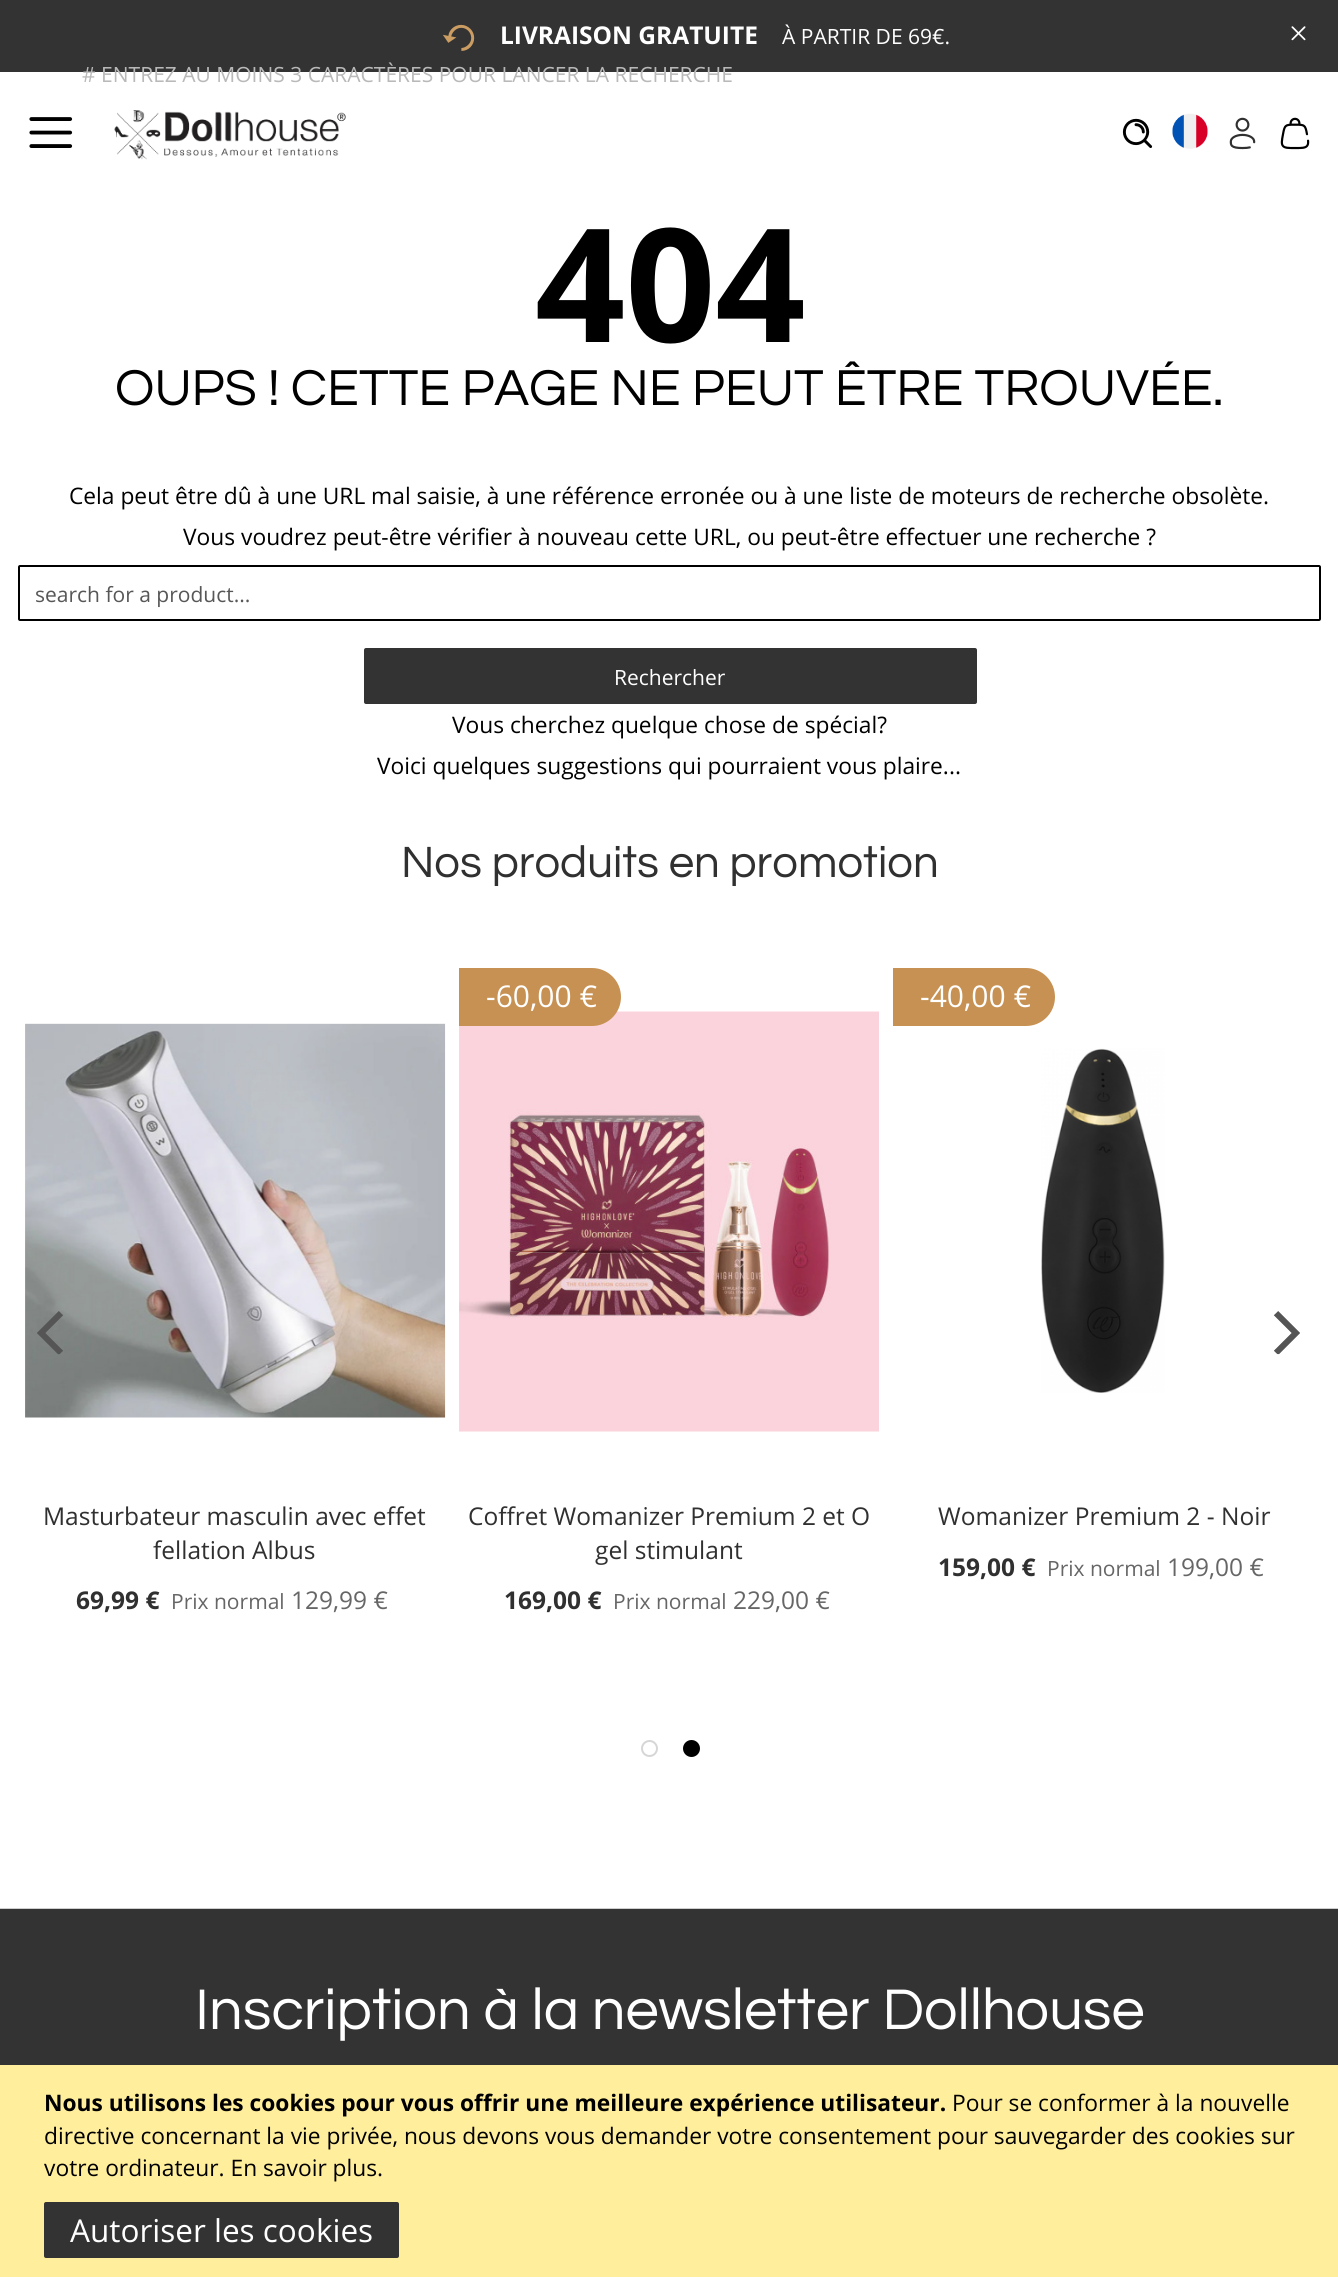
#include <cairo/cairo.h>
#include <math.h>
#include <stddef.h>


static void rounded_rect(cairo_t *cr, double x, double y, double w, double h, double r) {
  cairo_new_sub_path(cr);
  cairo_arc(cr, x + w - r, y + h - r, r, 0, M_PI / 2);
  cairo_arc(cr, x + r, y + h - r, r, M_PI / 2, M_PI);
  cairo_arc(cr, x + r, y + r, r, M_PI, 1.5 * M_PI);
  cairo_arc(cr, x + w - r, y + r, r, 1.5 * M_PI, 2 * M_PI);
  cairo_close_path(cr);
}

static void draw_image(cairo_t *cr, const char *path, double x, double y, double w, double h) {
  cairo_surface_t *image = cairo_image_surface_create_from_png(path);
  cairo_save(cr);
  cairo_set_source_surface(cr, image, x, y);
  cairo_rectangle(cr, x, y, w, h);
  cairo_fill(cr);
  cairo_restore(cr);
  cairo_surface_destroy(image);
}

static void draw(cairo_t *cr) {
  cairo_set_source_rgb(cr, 1, 1, 1);
  cairo_paint(cr);
  cairo_set_source_rgb(cr, 51 / 255.0, 51 / 255.0, 51 / 255.0);
  cairo_rectangle(cr, 0, 0, 1338, 72);
  cairo_fill(cr);
  draw_image(cr, "images/1.png", 443, 24, 32, 27);
  draw_image(cr, "images/2.png", 1291, 26, 15, 15);
  draw_image(cr, "images/3.png", 1122, 118, 31, 30);
  draw_image(cr, "images/4.png", 1172, 113, 36, 36);
  draw_image(cr, "images/5.png", 1229, 117, 27, 33);
  draw_image(cr, "images/6.png", 1280, 117, 30, 33);
  draw_image(cr, "images/7.png", 29, 117, 44, 31);
  draw_image(cr, "images/8.png", 114, 110, 232, 50);
  rounded_rect(cr, 19, 566, 1301, 54, 1);
  cairo_set_source_rgb(cr, 0, 0, 0);
  cairo_stroke(cr);
  cairo_set_source_rgb(cr, 51 / 255.0, 51 / 255.0, 51 / 255.0);
  rounded_rect(cr, 364, 648, 613, 56, 2);
  cairo_fill(cr);
  draw_image(cr, "images/9.png", 25, 1023, 421, 395);
  draw_image(cr, "images/10.png", 459, 1011, 420, 421);
  cairo_set_source_rgb(cr, 199 / 255.0, 145 / 255.0, 83 / 255.0);
  cairo_new_path(cr);
  cairo_move_to(cr, 459, 968);
  cairo_line_to(cr, 592, 968);
  cairo_curve_to(cr, 608, 968, 621, 981, 621, 997);
  cairo_curve_to(cr, 621, 1013, 608, 1026, 592, 1026);
  cairo_line_to(cr, 459, 1026);
  cairo_close_path(cr);
  cairo_fill(cr);
  cairo_new_path(cr);
  cairo_move_to(cr, 893, 968);
  cairo_line_to(cr, 1026, 968);
  cairo_curve_to(cr, 1042, 968, 1055, 981, 1055, 997);
  cairo_curve_to(cr, 1055, 1013, 1042, 1026, 1026, 1026);
  cairo_line_to(cr, 893, 1026);
  cairo_close_path(cr);
  cairo_fill(cr);
  draw_image(cr, "images/11.png", 1041, 1048, 124, 345);
  draw_image(cr, "images/12.png", 37, 1311, 26, 44);
  draw_image(cr, "images/13.png", 1273, 1311, 27, 44);
  cairo_arc(cr, 649.5, 1748.5, 7.5, 0, 2 * M_PI);
  cairo_set_source_rgb(cr, 214 / 255.0, 214 / 255.0, 214 / 255.0);
  cairo_stroke(cr);
  cairo_set_source_rgb(cr, 0, 0, 0);
  cairo_arc(cr, 691.5, 1748.5, 7.5, 0, 2 * M_PI);
  cairo_fill_preserve(cr);
  cairo_stroke(cr);
  cairo_set_source_rgb(cr, 206 / 255.0, 206 / 255.0, 206 / 255.0);
  cairo_rectangle(cr, 0, 1908, 1338, 1);
  cairo_fill(cr);
  cairo_set_source_rgb(cr, 51 / 255.0, 51 / 255.0, 51 / 255.0);
  cairo_rectangle(cr, 0, 1909, 1338, 156);
  cairo_fill(cr);
  cairo_set_source_rgb(cr, 1, 238 / 255.0, 156 / 255.0);
  cairo_rectangle(cr, 0, 2065, 1338, 212);
  cairo_fill(cr);
  cairo_set_source_rgb(cr, 51 / 255.0, 51 / 255.0, 51 / 255.0);
  rounded_rect(cr, 44, 2202, 355, 56, 2);
  cairo_fill(cr);
  cairo_select_font_face(cr, "Open Sans", CAIRO_FONT_SLANT_NORMAL, CAIRO_FONT_WEIGHT_BOLD);
  cairo_set_font_size(cr, 24.5);
  cairo_set_source_rgb(cr, 1, 1, 1);
  cairo_move_to(cr, 500, 44);
  cairo_show_text(cr, "LIVRAISON GRATUITE");
  cairo_select_font_face(cr, "Open Sans", CAIRO_FONT_SLANT_NORMAL, CAIRO_FONT_WEIGHT_NORMAL);
  cairo_set_font_size(cr, 21);
  cairo_move_to(cr, 782, 44);
  cairo_show_text(cr, "À PARTIR DE 69€.");
  cairo_set_source_rgb(cr, 185 / 255.0, 185 / 255.0, 185 / 255.0);
  cairo_move_to(cr, 82, 82);
  cairo_show_text(cr, "# ENTREZ AU MOINS 3 CARACTÈRES POUR LANCER LA RECHERCHE");
  cairo_select_font_face(cr, "Open Sans", CAIRO_FONT_SLANT_NORMAL, CAIRO_FONT_WEIGHT_BOLD);
  cairo_set_font_size(cr, 158);
  cairo_set_source_rgb(cr, 0, 0, 0);
  cairo_move_to(cr, 535, 342);
  cairo_show_text(cr, "404");
  cairo_select_font_face(cr, "Questrial", CAIRO_FONT_SLANT_NORMAL, CAIRO_FONT_WEIGHT_NORMAL);
  cairo_set_font_size(cr, 52.5);
  cairo_move_to(cr, 115, 405);
  cairo_show_text(cr, "OUPS ! CETTE PAGE NE PEUT ÊTRE TROUVÉE.");
  cairo_select_font_face(cr, "Open Sans", CAIRO_FONT_SLANT_NORMAL, CAIRO_FONT_WEIGHT_NORMAL);
  cairo_set_font_size(cr, 22.75);
  cairo_move_to(cr, 69, 504);
  cairo_show_text(cr, "Cela peut être dû à une URL mal saisie, à une référence erronée ou à une liste de moteurs de recherche obsolète.");
  cairo_move_to(cr, 183, 545);
  cairo_show_text(cr, "Vous voudrez peut-être vérifier à nouveau cette URL, ou peut-être effectuer une recherche ?");
  cairo_set_font_size(cr, 21);
  cairo_set_source_rgb(cr, 87 / 255.0, 87 / 255.0, 87 / 255.0);
  cairo_move_to(cr, 35, 602);
  cairo_show_text(cr, "search for a product...");
  cairo_set_source_rgb(cr, 1, 1, 1);
  cairo_move_to(cr, 614, 685);
  cairo_show_text(cr, "Rechercher");
  cairo_set_font_size(cr, 22.75);
  cairo_set_source_rgb(cr, 0, 0, 0);
  cairo_move_to(cr, 452, 733);
  cairo_show_text(cr, "Vous cherchez quelque chose de spécial?");
  cairo_move_to(cr, 377, 774);
  cairo_show_text(cr, "Voici quelques suggestions qui pourraient vous plaire...");
  cairo_select_font_face(cr, "Questrial", CAIRO_FONT_SLANT_NORMAL, CAIRO_FONT_WEIGHT_NORMAL);
  cairo_set_font_size(cr, 45.5);
  cairo_set_source_rgb(cr, 48 / 255.0, 48 / 255.0, 48 / 255.0);
  cairo_move_to(cr, 401, 877);
  cairo_show_text(cr, "Nos produits en promotion");
  cairo_select_font_face(cr, "Open Sans", CAIRO_FONT_SLANT_NORMAL, CAIRO_FONT_WEIGHT_NORMAL);
  cairo_set_font_size(cr, 24.5);
  cairo_move_to(cr, 43, 1525);
  cairo_show_text(cr, "Masturbateur masculin avec effet");
  cairo_move_to(cr, 153, 1559);
  cairo_show_text(cr, "fellation Albus");
  cairo_select_font_face(cr, "Open Sans", CAIRO_FONT_SLANT_NORMAL, CAIRO_FONT_WEIGHT_BOLD);
  cairo_move_to(cr, 76, 1609);
  cairo_show_text(cr, "69,99 €");
  cairo_select_font_face(cr, "Open Sans", CAIRO_FONT_SLANT_NORMAL, CAIRO_FONT_WEIGHT_NORMAL);
  cairo_set_font_size(cr, 21);
  cairo_set_source_rgb(cr, 102 / 255.0, 102 / 255.0, 102 / 255.0);
  cairo_move_to(cr, 171, 1609);
  cairo_show_text(cr, "Prix normal");
  cairo_set_font_size(cr, 24.5);
  cairo_move_to(cr, 291, 1609);
  cairo_show_text(cr, "129,99 €");
  cairo_set_font_size(cr, 30);
  cairo_set_source_rgb(cr, 1, 1, 1);
  cairo_move_to(cr, 486, 1007);
  cairo_show_text(cr, "-60,00 €");
  cairo_set_font_size(cr, 24.5);
  cairo_set_source_rgb(cr, 48 / 255.0, 48 / 255.0, 48 / 255.0);
  cairo_move_to(cr, 468, 1525);
  cairo_show_text(cr, "Coffret Womanizer Premium 2 et O");
  cairo_move_to(cr, 595, 1559);
  cairo_show_text(cr, "gel stimulant");
  cairo_select_font_face(cr, "Open Sans", CAIRO_FONT_SLANT_NORMAL, CAIRO_FONT_WEIGHT_BOLD);
  cairo_move_to(cr, 504, 1609);
  cairo_show_text(cr, "169,00 €");
  cairo_select_font_face(cr, "Open Sans", CAIRO_FONT_SLANT_NORMAL, CAIRO_FONT_WEIGHT_NORMAL);
  cairo_set_font_size(cr, 21);
  cairo_set_source_rgb(cr, 102 / 255.0, 102 / 255.0, 102 / 255.0);
  cairo_move_to(cr, 613, 1609);
  cairo_show_text(cr, "Prix normal");
  cairo_set_font_size(cr, 24.5);
  cairo_move_to(cr, 733, 1609);
  cairo_show_text(cr, "229,00 €");
  cairo_set_font_size(cr, 30);
  cairo_set_source_rgb(cr, 1, 1, 1);
  cairo_move_to(cr, 920, 1007);
  cairo_show_text(cr, "-40,00 €");
  cairo_set_font_size(cr, 24.5);
  cairo_set_source_rgb(cr, 48 / 255.0, 48 / 255.0, 48 / 255.0);
  cairo_move_to(cr, 938, 1525);
  cairo_show_text(cr, "Womanizer Premium 2 - Noir");
  cairo_select_font_face(cr, "Open Sans", CAIRO_FONT_SLANT_NORMAL, CAIRO_FONT_WEIGHT_BOLD);
  cairo_move_to(cr, 938, 1576);
  cairo_show_text(cr, "159,00 €");
  cairo_select_font_face(cr, "Open Sans", CAIRO_FONT_SLANT_NORMAL, CAIRO_FONT_WEIGHT_NORMAL);
  cairo_set_font_size(cr, 21);
  cairo_set_source_rgb(cr, 102 / 255.0, 102 / 255.0, 102 / 255.0);
  cairo_move_to(cr, 1047, 1576);
  cairo_show_text(cr, "Prix normal");
  cairo_set_font_size(cr, 24.5);
  cairo_move_to(cr, 1167, 1576);
  cairo_show_text(cr, "199,00 €");
  cairo_select_font_face(cr, "Questrial", CAIRO_FONT_SLANT_NORMAL, CAIRO_FONT_WEIGHT_NORMAL);
  cairo_set_font_size(cr, 59.5);
  cairo_set_source_rgb(cr, 1, 1, 1);
  cairo_move_to(cr, 195, 2029);
  cairo_show_text(cr, "Inscription à la newsletter Dollhouse");
  cairo_select_font_face(cr, "Open Sans", CAIRO_FONT_SLANT_NORMAL, CAIRO_FONT_WEIGHT_BOLD);
  cairo_set_font_size(cr, 22.75);
  cairo_set_source_rgb(cr, 0, 0, 0);
  cairo_move_to(cr, 44, 2111);
  cairo_show_text(cr, "Nous utilisons les cookies pour vous offrir une meilleure expérience utilisateur.");
  cairo_select_font_face(cr, "Open Sans", CAIRO_FONT_SLANT_NORMAL, CAIRO_FONT_WEIGHT_NORMAL);
  cairo_move_to(cr, 952, 2111);
  cairo_show_text(cr, "Pour se conformer à la nouvelle");
  cairo_move_to(cr, 44, 2144);
  cairo_show_text(cr, "directive concernant la vie privée, nous devons vous demander votre consentement pour sauvegarder des cookies sur");
  cairo_move_to(cr, 44, 2176);
  cairo_show_text(cr, "votre ordinateur. En savoir plus.");
  cairo_set_font_size(cr, 31.5);
  cairo_set_source_rgb(cr, 1, 1, 1);
  cairo_move_to(cr, 70, 2242);
  cairo_show_text(cr, "Autoriser les cookies");
}

int main(void) {
  cairo_surface_t *surface = cairo_image_surface_create(CAIRO_FORMAT_RGB24, 1338, 2277);
  cairo_t *cr = cairo_create(surface);
  cairo_font_options_t *options = cairo_font_options_create();
  cairo_font_options_set_hint_metrics(options, CAIRO_HINT_METRICS_OFF);
  cairo_font_options_set_hint_style(options, CAIRO_HINT_STYLE_NONE);
  cairo_set_font_options(cr, options);
  cairo_set_miter_limit(cr, 4);
  draw(cr);
  cairo_surface_write_to_png(surface, "out.png");
  cairo_font_options_destroy(options);
  cairo_destroy(cr);
  cairo_surface_destroy(surface);
  return 0;
}
